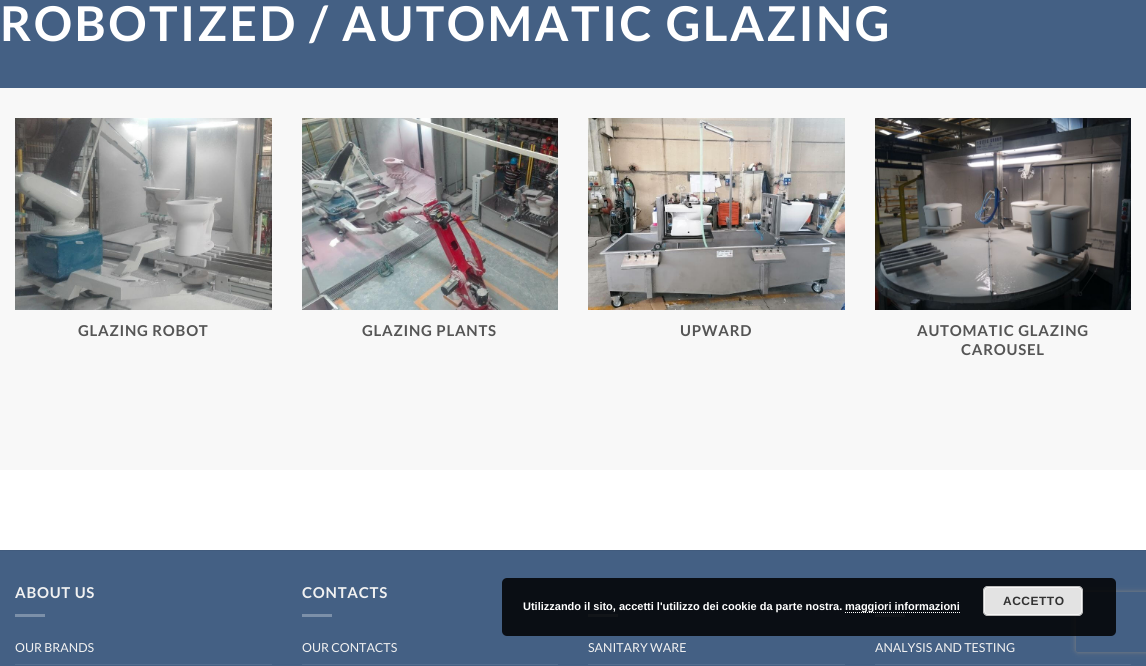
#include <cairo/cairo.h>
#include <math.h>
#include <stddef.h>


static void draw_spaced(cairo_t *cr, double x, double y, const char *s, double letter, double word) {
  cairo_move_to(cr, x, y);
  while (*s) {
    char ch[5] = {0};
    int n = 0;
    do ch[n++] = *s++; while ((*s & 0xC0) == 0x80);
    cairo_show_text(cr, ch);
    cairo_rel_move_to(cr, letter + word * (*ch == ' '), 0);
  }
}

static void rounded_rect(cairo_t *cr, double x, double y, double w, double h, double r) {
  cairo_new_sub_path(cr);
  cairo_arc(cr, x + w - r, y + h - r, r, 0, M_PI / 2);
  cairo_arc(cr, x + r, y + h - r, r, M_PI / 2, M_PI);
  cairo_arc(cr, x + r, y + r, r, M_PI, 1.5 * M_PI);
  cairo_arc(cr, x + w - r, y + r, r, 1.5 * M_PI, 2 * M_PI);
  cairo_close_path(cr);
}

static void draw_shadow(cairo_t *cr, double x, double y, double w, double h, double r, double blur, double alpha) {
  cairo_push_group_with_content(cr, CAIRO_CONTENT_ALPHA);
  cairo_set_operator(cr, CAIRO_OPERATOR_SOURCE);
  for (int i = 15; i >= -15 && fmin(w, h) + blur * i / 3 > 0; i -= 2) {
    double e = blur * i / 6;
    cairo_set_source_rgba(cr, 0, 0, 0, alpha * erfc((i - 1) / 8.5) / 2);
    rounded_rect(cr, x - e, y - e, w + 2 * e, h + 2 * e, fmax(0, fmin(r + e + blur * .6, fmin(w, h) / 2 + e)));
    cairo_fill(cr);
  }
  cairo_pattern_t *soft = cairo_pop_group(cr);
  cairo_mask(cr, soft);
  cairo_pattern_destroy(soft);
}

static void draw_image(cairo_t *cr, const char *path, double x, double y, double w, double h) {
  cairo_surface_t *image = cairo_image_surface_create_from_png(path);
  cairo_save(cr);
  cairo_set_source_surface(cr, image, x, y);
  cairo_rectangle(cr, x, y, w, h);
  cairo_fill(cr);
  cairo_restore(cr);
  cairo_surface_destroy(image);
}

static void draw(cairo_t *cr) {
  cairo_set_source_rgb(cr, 1, 1, 1);
  cairo_paint(cr);
  cairo_set_source_rgb(cr, 68 / 255.0, 96 / 255.0, 132 / 255.0);
  cairo_rectangle(cr, 0, 0, 1146, 88);
  cairo_fill(cr);
  cairo_set_source_rgb(cr, 248 / 255.0, 248 / 255.0, 248 / 255.0);
  cairo_rectangle(cr, 0, 88, 1146, 382);
  cairo_fill(cr);
  draw_image(cr, "images/1.png", 15, 118, 257, 192);
  draw_image(cr, "images/2.png", 302, 118, 256, 192);
  draw_image(cr, "images/3.png", 588, 118, 257, 192);
  draw_image(cr, "images/4.png", 875, 118, 256, 192);
  cairo_set_source_rgb(cr, 68 / 255.0, 96 / 255.0, 132 / 255.0);
  cairo_rectangle(cr, 0, 551, 1146, 115);
  cairo_fill(cr);
  cairo_set_source_rgb(cr, 65 / 255.0, 91 / 255.0, 125 / 255.0);
  cairo_rectangle(cr, 0, 550, 1146, 1);
  cairo_fill(cr);
  cairo_set_source_rgb(cr, 124 / 255.0, 144 / 255.0, 169 / 255.0);
  cairo_rectangle(cr, 15, 614, 30, 3);
  cairo_fill(cr);
  cairo_set_source_rgb(cr, 83 / 255.0, 109 / 255.0, 142 / 255.0);
  cairo_rectangle(cr, 15, 664, 257, 1);
  cairo_fill(cr);
  cairo_set_source_rgb(cr, 124 / 255.0, 144 / 255.0, 169 / 255.0);
  cairo_rectangle(cr, 302, 614, 30, 3);
  cairo_fill(cr);
  cairo_set_source_rgb(cr, 83 / 255.0, 109 / 255.0, 142 / 255.0);
  cairo_rectangle(cr, 302, 664, 256, 1);
  cairo_fill(cr);
  cairo_set_source_rgb(cr, 124 / 255.0, 144 / 255.0, 169 / 255.0);
  cairo_rectangle(cr, 588, 614, 30, 3);
  cairo_fill(cr);
  cairo_set_source_rgb(cr, 83 / 255.0, 109 / 255.0, 142 / 255.0);
  cairo_rectangle(cr, 588, 664, 257, 1);
  cairo_fill(cr);
  cairo_set_source_rgb(cr, 124 / 255.0, 144 / 255.0, 169 / 255.0);
  cairo_rectangle(cr, 875, 614, 30, 3);
  cairo_fill(cr);
  cairo_set_source_rgb(cr, 83 / 255.0, 109 / 255.0, 142 / 255.0);
  cairo_rectangle(cr, 875, 664, 256, 1);
  cairo_fill(cr);
  cairo_save(cr);
  cairo_set_fill_rule(cr, CAIRO_FILL_RULE_EVEN_ODD);
  cairo_new_path(cr);
  cairo_move_to(cr, 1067, 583);
  cairo_line_to(cr, 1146, 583);
  cairo_line_to(cr, 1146, 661);
  cairo_line_to(cr, 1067, 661);
  cairo_close_path(cr);
  cairo_move_to(cr, 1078, 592);
  cairo_line_to(cr, 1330, 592);
  cairo_curve_to(cr, 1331, 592, 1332, 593, 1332, 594);
  cairo_line_to(cr, 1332, 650);
  cairo_curve_to(cr, 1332, 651, 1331, 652, 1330, 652);
  cairo_line_to(cr, 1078, 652);
  cairo_curve_to(cr, 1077, 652, 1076, 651, 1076, 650);
  cairo_line_to(cr, 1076, 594);
  cairo_curve_to(cr, 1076, 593, 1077, 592, 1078, 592);
  cairo_close_path(cr);
  cairo_clip(cr);
  cairo_set_source_rgb(cr, 128 / 255.0, 128 / 255.0, 128 / 255.0);
  draw_shadow(cr, 1076, 592, 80, 60, 2, 2.5, 1);
  cairo_restore(cr);
  cairo_set_source_rgba(cr, 0, 0, 0, 0.85);
  rounded_rect(cr, 502, 578, 614, 58, 5);
  cairo_fill(cr);
  cairo_set_source_rgb(cr, 227 / 255.0, 227 / 255.0, 227 / 255.0);
  rounded_rect(cr, 983, 586, 100, 30, 5);
  cairo_fill(cr);
  rounded_rect(cr, 984.5, 587.5, 97, 27, 3.5);
  cairo_set_source_rgb(cr, 246 / 255.0, 246 / 255.0, 246 / 255.0);
  cairo_set_line_width(cr, 1);
  cairo_stroke(cr);
  rounded_rect(cr, 983.5, 586.5, 99, 29, 4.5);
  cairo_set_source_rgb(cr, 187 / 255.0, 187 / 255.0, 187 / 255.0);
  cairo_stroke(cr);
  cairo_new_path(cr);
  cairo_move_to(cr, 845, 612.5);
  cairo_line_to(cr, 960, 612.5);
  cairo_set_source_rgb(cr, 1, 1, 1);
  cairo_set_dash(cr, (double[]){1, 1}, 2, 0);
  cairo_stroke(cr);
  cairo_select_font_face(cr, "Lato", CAIRO_FONT_SLANT_NORMAL, CAIRO_FONT_WEIGHT_BOLD);
  cairo_set_font_size(cr, 48);
  draw_spaced(cr, 0, 41, "ROBOTIZED / AUTOMATIC GLAZING", 2.4, 0);
  cairo_set_font_size(cr, 15);
  cairo_set_source_rgb(cr, 85 / 255.0, 85 / 255.0, 85 / 255.0);
  draw_spaced(cr, 78, 336, "GLAZING ROBOT", 0.75, 0);
  draw_spaced(cr, 362, 336, "GLAZING PLANTS", 0.75, 0);
  draw_spaced(cr, 680, 336, "UPWARD", 0.75, 0);
  draw_spaced(cr, 917, 336, "AUTOMATIC GLAZING", 0.75, 0);
  draw_spaced(cr, 961, 355, "CAROUSEL", 0.75, 0);
  cairo_set_source_rgb(cr, 241 / 255.0, 241 / 255.0, 241 / 255.0);
  draw_spaced(cr, 15, 598, "ABOUT US", 0.75, 0);
  cairo_select_font_face(cr, "Lato", CAIRO_FONT_SLANT_NORMAL, CAIRO_FONT_WEIGHT_NORMAL);
  cairo_set_font_size(cr, 12.4);
  cairo_move_to(cr, 15, 652);
  cairo_show_text(cr, "OUR BRANDS");
  cairo_select_font_face(cr, "Lato", CAIRO_FONT_SLANT_NORMAL, CAIRO_FONT_WEIGHT_BOLD);
  cairo_set_font_size(cr, 15);
  draw_spaced(cr, 302, 598, "CONTACTS", 0.75, 0);
  cairo_select_font_face(cr, "Lato", CAIRO_FONT_SLANT_NORMAL, CAIRO_FONT_WEIGHT_NORMAL);
  cairo_set_font_size(cr, 12.4);
  cairo_move_to(cr, 302, 652);
  cairo_show_text(cr, "OUR CONTACTS");
  cairo_move_to(cr, 588, 652);
  cairo_show_text(cr, "SANITARY WARE");
  cairo_move_to(cr, 875, 652);
  cairo_show_text(cr, "ANALYSIS AND TESTING");
  cairo_select_font_face(cr, "Liberation Sans", CAIRO_FONT_SLANT_NORMAL, CAIRO_FONT_WEIGHT_BOLD);
  cairo_set_font_size(cr, 12);
  cairo_set_source_rgb(cr, 51 / 255.0, 51 / 255.0, 51 / 255.0);
  draw_spaced(cr, 1003, 605, "ACCETTO", 0.5, 0);
  cairo_set_font_size(cr, 11);
  cairo_set_source_rgb(cr, 1, 1, 1);
  cairo_move_to(cr, 523, 610);
  cairo_show_text(cr, "Utilizzando il sito, accetti l'utilizzo dei cookie da parte nostra.");
  cairo_move_to(cr, 845, 610);
  cairo_show_text(cr, "maggiori informazioni");
}

int main(void) {
  cairo_surface_t *surface = cairo_image_surface_create(CAIRO_FORMAT_RGB24, 1146, 666);
  cairo_t *cr = cairo_create(surface);
  cairo_font_options_t *options = cairo_font_options_create();
  cairo_font_options_set_hint_metrics(options, CAIRO_HINT_METRICS_OFF);
  cairo_font_options_set_hint_style(options, CAIRO_HINT_STYLE_NONE);
  cairo_set_font_options(cr, options);
  cairo_set_miter_limit(cr, 4);
  draw(cr);
  cairo_surface_write_to_png(surface, "out.png");
  cairo_font_options_destroy(options);
  cairo_destroy(cr);
  cairo_surface_destroy(surface);
  return 0;
}
